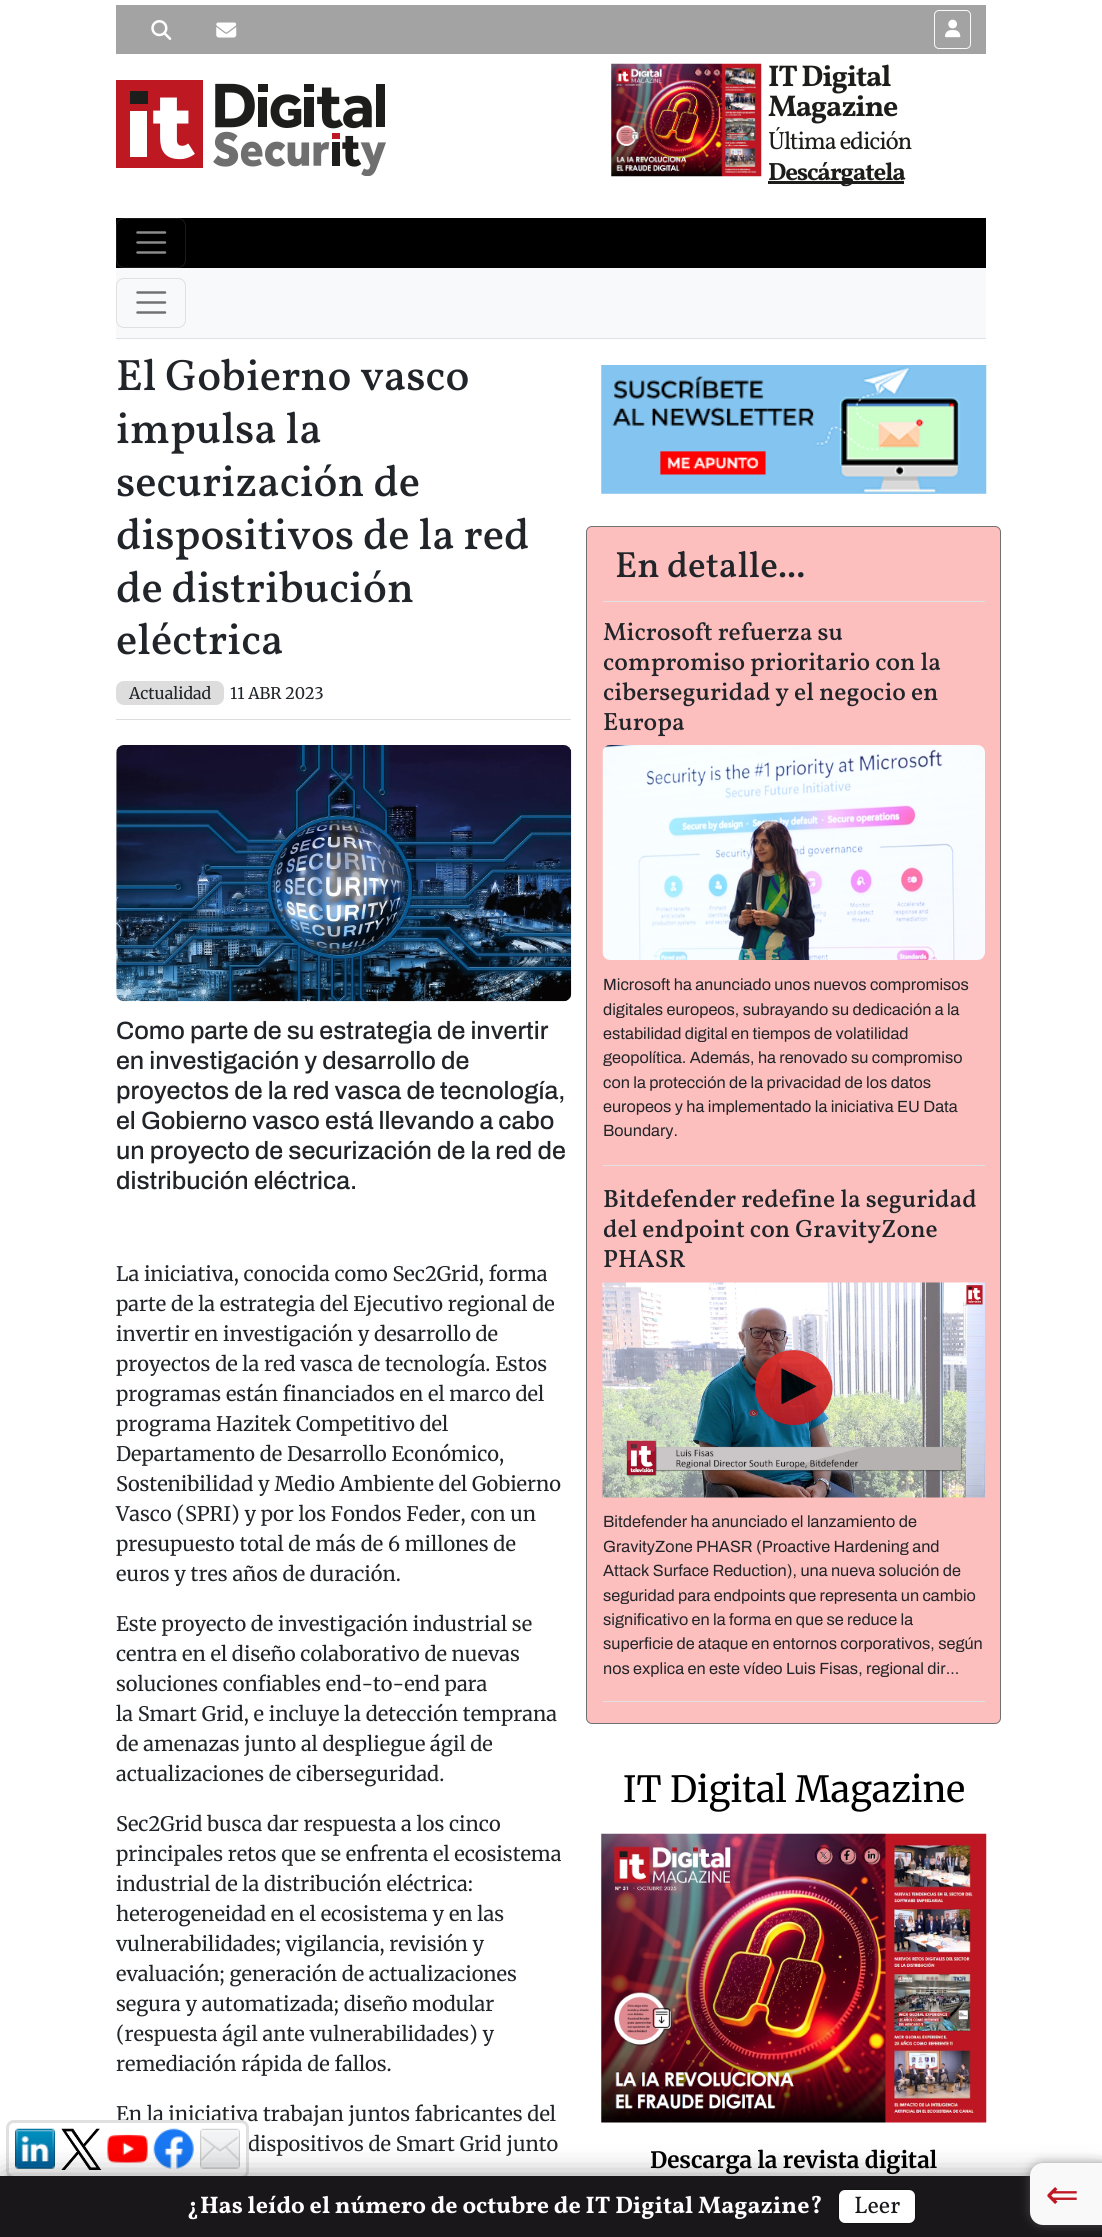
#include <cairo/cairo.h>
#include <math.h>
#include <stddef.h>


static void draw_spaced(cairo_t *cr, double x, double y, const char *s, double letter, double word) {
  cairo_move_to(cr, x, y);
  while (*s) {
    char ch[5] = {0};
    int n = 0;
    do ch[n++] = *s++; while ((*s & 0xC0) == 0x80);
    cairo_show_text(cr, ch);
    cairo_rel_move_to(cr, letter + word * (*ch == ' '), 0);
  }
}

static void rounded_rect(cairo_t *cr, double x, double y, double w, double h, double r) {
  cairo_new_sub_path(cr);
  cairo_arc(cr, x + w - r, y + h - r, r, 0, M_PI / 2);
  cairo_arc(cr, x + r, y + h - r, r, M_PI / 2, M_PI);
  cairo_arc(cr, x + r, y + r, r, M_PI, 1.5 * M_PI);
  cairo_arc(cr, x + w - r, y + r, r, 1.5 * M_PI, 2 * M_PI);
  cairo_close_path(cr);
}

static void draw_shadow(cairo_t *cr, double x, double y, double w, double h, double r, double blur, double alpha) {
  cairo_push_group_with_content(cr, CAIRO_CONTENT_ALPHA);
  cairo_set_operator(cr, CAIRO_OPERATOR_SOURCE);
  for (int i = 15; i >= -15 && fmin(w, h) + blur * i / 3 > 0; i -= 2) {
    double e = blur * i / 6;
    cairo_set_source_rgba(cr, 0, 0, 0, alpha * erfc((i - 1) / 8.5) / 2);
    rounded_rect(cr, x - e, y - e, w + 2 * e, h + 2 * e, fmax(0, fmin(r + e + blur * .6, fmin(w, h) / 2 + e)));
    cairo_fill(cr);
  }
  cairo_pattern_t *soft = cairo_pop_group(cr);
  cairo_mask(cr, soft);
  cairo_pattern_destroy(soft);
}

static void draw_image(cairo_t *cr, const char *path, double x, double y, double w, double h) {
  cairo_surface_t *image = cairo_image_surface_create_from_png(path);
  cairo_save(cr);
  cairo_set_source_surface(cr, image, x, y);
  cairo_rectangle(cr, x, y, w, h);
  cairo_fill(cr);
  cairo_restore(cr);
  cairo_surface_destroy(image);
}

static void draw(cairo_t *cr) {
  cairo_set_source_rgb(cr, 1, 1, 1);
  cairo_paint(cr);
  cairo_set_source_rgb(cr, 163 / 255.0, 163 / 255.0, 163 / 255.0);
  cairo_rectangle(cr, 116, 5, 870, 49);
  cairo_fill(cr);
  draw_image(cr, "images/1.png", 151, 20, 21, 20);
  draw_image(cr, "images/2.png", 216, 22, 21, 16);
  rounded_rect(cr, 934.5, 10.5, 36, 38, 4.5);
  cairo_set_source_rgb(cr, 248 / 255.0, 249 / 255.0, 250 / 255.0);
  cairo_set_line_width(cr, 1);
  cairo_stroke(cr);
  draw_image(cr, "images/3.png", 945, 19, 16, 19);
  draw_image(cr, "images/4.png", 116, 80, 270, 96);
  draw_image(cr, "images/5.png", 611, 63, 151, 114);
  cairo_set_source_rgb(cr, 29 / 255.0, 29 / 255.0, 27 / 255.0);
  cairo_rectangle(cr, 768, 181, 136, 3);
  cairo_fill(cr);
  cairo_set_source_rgb(cr, 0, 0, 0);
  cairo_rectangle(cr, 116, 218, 870, 50);
  cairo_fill(cr);
  rounded_rect(cr, 116.5, 218.5, 69, 49, 7.5);
  cairo_set_source_rgb(cr, 26 / 255.0, 26 / 255.0, 26 / 255.0);
  cairo_stroke(cr);
  cairo_new_path(cr);
  cairo_move_to(cr, 137.5, 232.5);
  cairo_line_to(cr, 165, 232.5);
  cairo_move_to(cr, 137.5, 242.5);
  cairo_line_to(cr, 165, 242.5);
  cairo_move_to(cr, 137.5, 252.5);
  cairo_line_to(cr, 165, 252.5);
  cairo_set_source_rgb(cr, 140 / 255.0, 140 / 255.0, 140 / 255.0);
  cairo_set_line_width(cr, 2.5);
  cairo_set_line_cap(cr, CAIRO_LINE_CAP_ROUND);
  cairo_stroke(cr);
  cairo_set_source_rgb(cr, 248 / 255.0, 249 / 255.0, 250 / 255.0);
  cairo_rectangle(cr, 116, 268, 870, 70);
  cairo_fill(cr);
  cairo_set_source_rgb(cr, 222 / 255.0, 226 / 255.0, 230 / 255.0);
  cairo_rectangle(cr, 116, 338, 870, 1);
  cairo_fill(cr);
  rounded_rect(cr, 116.5, 278.5, 69, 49, 7.5);
  cairo_set_source_rgb(cr, 223 / 255.0, 224 / 255.0, 225 / 255.0);
  cairo_set_line_width(cr, 1);
  cairo_set_line_cap(cr, CAIRO_LINE_CAP_BUTT);
  cairo_stroke(cr);
  cairo_new_path(cr);
  cairo_move_to(cr, 137.5, 292.5);
  cairo_line_to(cr, 165, 292.5);
  cairo_move_to(cr, 137.5, 302.5);
  cairo_line_to(cr, 165, 302.5);
  cairo_move_to(cr, 137.5, 312.5);
  cairo_line_to(cr, 165, 312.5);
  cairo_set_source_rgb(cr, 112 / 255.0, 112 / 255.0, 113 / 255.0);
  cairo_set_line_width(cr, 2.5);
  cairo_set_line_cap(cr, CAIRO_LINE_CAP_ROUND);
  cairo_stroke(cr);
  cairo_set_source_rgb(cr, 221 / 255.0, 221 / 255.0, 221 / 255.0);
  cairo_rectangle(cr, 116, 719, 455, 1);
  cairo_fill(cr);
  rounded_rect(cr, 116, 681, 108, 24, 8);
  cairo_fill(cr);
  draw_image(cr, "images/6.png", 116, 745, 456, 257);
  draw_image(cr, "images/7.png", 601, 365, 386, 129);
  cairo_set_source_rgb(cr, 253 / 255.0, 190 / 255.0, 190 / 255.0);
  rounded_rect(cr, 586.5, 526.5, 414, 1197, 5.5);
  cairo_fill_preserve(cr);
  cairo_set_source_rgb(cr, 112 / 255.0, 113 / 255.0, 115 / 255.0);
  cairo_set_line_width(cr, 1);
  cairo_set_line_cap(cr, CAIRO_LINE_CAP_BUTT);
  cairo_stroke(cr);
  cairo_set_source_rgb(cr, 222 / 255.0, 226 / 255.0, 230 / 255.0);
  cairo_rectangle(cr, 603, 601, 382, 1);
  cairo_fill(cr);
  cairo_rectangle(cr, 603, 1165, 382, 1);
  cairo_fill(cr);
  draw_image(cr, "images/8.png", 602, 745, 383, 215);
  cairo_rectangle(cr, 603, 1701, 382, 1);
  cairo_fill(cr);
  draw_image(cr, "images/9.png", 602, 1282, 383, 216);
  draw_image(cr, "images/10.png", 755, 1350, 78, 75);
  draw_image(cr, "images/11.png", 601, 1833, 386, 290);
  cairo_select_font_face(cr, "Vollkorn", CAIRO_FONT_SLANT_NORMAL, CAIRO_FONT_WEIGHT_BOLD);
  cairo_set_font_size(cr, 30);
  cairo_set_source_rgb(cr, 29 / 255.0, 29 / 255.0, 27 / 255.0);
  draw_spaced(cr, 768, 86, "IT Digital", -1.25, 0);
  draw_spaced(cr, 768, 116, "Magazine", -1.25, 0);
  cairo_select_font_face(cr, "Vollkorn", CAIRO_FONT_SLANT_NORMAL, CAIRO_FONT_WEIGHT_NORMAL);
  cairo_set_font_size(cr, 25);
  draw_spaced(cr, 768, 149, "Última edición", -1.25, 0);
  cairo_select_font_face(cr, "Vollkorn", CAIRO_FONT_SLANT_NORMAL, CAIRO_FONT_WEIGHT_BOLD);
  draw_spaced(cr, 768, 180, "Descárgatela", -1.25, 0);
  cairo_select_font_face(cr, "Vollkorn Medium", CAIRO_FONT_SLANT_NORMAL, CAIRO_FONT_WEIGHT_NORMAL);
  cairo_set_font_size(cr, 44);
  cairo_set_source_rgb(cr, 33 / 255.0, 37 / 255.0, 41 / 255.0);
  cairo_move_to(cr, 116, 390);
  cairo_show_text(cr, "El Gobierno vasco");
  cairo_move_to(cr, 116, 443);
  cairo_show_text(cr, "impulsa la");
  cairo_move_to(cr, 116, 496);
  cairo_show_text(cr, "securización de");
  cairo_move_to(cr, 116, 549);
  cairo_show_text(cr, "dispositivos de la red");
  cairo_move_to(cr, 116, 602);
  cairo_show_text(cr, "de distribución");
  cairo_move_to(cr, 116, 654);
  cairo_show_text(cr, "eléctrica");
  cairo_select_font_face(cr, "Merriweather", CAIRO_FONT_SLANT_NORMAL, CAIRO_FONT_WEIGHT_NORMAL);
  cairo_set_font_size(cr, 16);
  cairo_move_to(cr, 129, 699);
  cairo_show_text(cr, "Actualidad");
  cairo_move_to(cr, 230, 699);
  cairo_show_text(cr, "11 ABR 2023");
  cairo_select_font_face(cr, "Archivo Medium", CAIRO_FONT_SLANT_NORMAL, CAIRO_FONT_WEIGHT_NORMAL);
  cairo_set_font_size(cr, 25);
  cairo_move_to(cr, 116, 1039);
  cairo_show_text(cr, "Como parte de su estrategia de invertir");
  cairo_move_to(cr, 116, 1069);
  cairo_show_text(cr, "en investigación y desarrollo de");
  cairo_move_to(cr, 116, 1099);
  cairo_show_text(cr, "proyectos de la red vasca de tecnología,");
  cairo_move_to(cr, 116, 1129);
  cairo_show_text(cr, "el Gobierno vasco está llevando a cabo");
  cairo_move_to(cr, 116, 1159);
  cairo_show_text(cr, "un proyecto de securización de la red de");
  cairo_move_to(cr, 116, 1189);
  cairo_show_text(cr, "distribución eléctrica.");
  cairo_select_font_face(cr, "Merriweather", CAIRO_FONT_SLANT_NORMAL, CAIRO_FONT_WEIGHT_NORMAL);
  cairo_set_font_size(cr, 20);
  cairo_move_to(cr, 116, 1281);
  cairo_show_text(cr, "La iniciativa, conocida como Sec2Grid, forma");
  cairo_move_to(cr, 116, 1311);
  cairo_show_text(cr, "parte de la estrategia del Ejecutivo regional de");
  cairo_move_to(cr, 116, 1341);
  cairo_show_text(cr, "invertir en investigación y desarrollo de");
  cairo_move_to(cr, 116, 1371);
  cairo_show_text(cr, "proyectos de la red vasca de tecnología. Estos");
  cairo_move_to(cr, 116, 1401);
  cairo_show_text(cr, "programas están financiados en el marco del");
  cairo_move_to(cr, 116, 1431);
  cairo_show_text(cr, "programa Hazitek Competitivo del");
  cairo_move_to(cr, 116, 1461);
  cairo_show_text(cr, "Departamento de Desarrollo Económico,");
  cairo_move_to(cr, 116, 1491);
  cairo_show_text(cr, "Sostenibilidad y Medio Ambiente del Gobierno");
  cairo_move_to(cr, 116, 1521);
  cairo_show_text(cr, "Vasco (SPRI) y por los Fondos Feder, con un");
  cairo_move_to(cr, 116, 1551);
  cairo_show_text(cr, "presupuesto total de más de 6 millones de");
  cairo_move_to(cr, 116, 1581);
  cairo_show_text(cr, "euros y tres años de duración.");
  cairo_move_to(cr, 116, 1631);
  cairo_show_text(cr, "Este proyecto de investigación industrial se");
  cairo_move_to(cr, 116, 1661);
  cairo_show_text(cr, "centra en el diseño colaborativo de nuevas");
  cairo_move_to(cr, 116, 1691);
  cairo_show_text(cr, "soluciones confiables end-to-end para");
  cairo_move_to(cr, 116, 1721);
  cairo_show_text(cr, "la Smart Grid, e incluye la detección temprana");
  cairo_move_to(cr, 116, 1751);
  cairo_show_text(cr, "de amenazas junto al despliegue ágil de");
  cairo_move_to(cr, 116, 1781);
  cairo_show_text(cr, "actualizaciones de ciberseguridad.");
  cairo_move_to(cr, 116, 1831);
  cairo_show_text(cr, "Sec2Grid busca dar respuesta a los cinco");
  cairo_move_to(cr, 116, 1861);
  cairo_show_text(cr, "principales retos que se enfrenta el ecosistema");
  cairo_move_to(cr, 116, 1891);
  cairo_show_text(cr, "industrial de la distribución eléctrica:");
  cairo_move_to(cr, 116, 1921);
  cairo_show_text(cr, "heterogeneidad en el ecosistema y en las");
  cairo_move_to(cr, 116, 1951);
  cairo_show_text(cr, "vulnerabilidades; vigilancia, revisión y");
  cairo_move_to(cr, 116, 1981);
  cairo_show_text(cr, "evaluación; generación de actualizaciones");
  cairo_move_to(cr, 116, 2011);
  cairo_show_text(cr, "segura y automatizada; diseño modular");
  cairo_move_to(cr, 116, 2041);
  cairo_show_text(cr, "(respuesta ágil ante vulnerabilidades) y");
  cairo_move_to(cr, 116, 2071);
  cairo_show_text(cr, "remediación rápida de fallos.");
  cairo_move_to(cr, 116, 2121);
  cairo_show_text(cr, "En la iniciativa trabajan juntos fabricantes del");
  cairo_move_to(cr, 248, 2151);
  cairo_show_text(cr, "dispositivos de Smart Grid junto");
  cairo_select_font_face(cr, "Vollkorn Medium", CAIRO_FONT_SLANT_NORMAL, CAIRO_FONT_WEIGHT_NORMAL);
  cairo_set_font_size(cr, 36.5);
  cairo_move_to(cr, 615, 577);
  cairo_show_text(cr, "En detalle...");
  cairo_set_font_size(cr, 25);
  cairo_move_to(cr, 603, 640);
  cairo_show_text(cr, "Microsoft refuerza su");
  cairo_move_to(cr, 603, 670);
  cairo_show_text(cr, "compromiso prioritario con la");
  cairo_move_to(cr, 603, 700);
  cairo_show_text(cr, "ciberseguridad y el negocio en");
  cairo_move_to(cr, 603, 730);
  cairo_show_text(cr, "Europa");
  cairo_select_font_face(cr, "Archivo", CAIRO_FONT_SLANT_NORMAL, CAIRO_FONT_WEIGHT_NORMAL);
  cairo_set_font_size(cr, 16.25);
  cairo_move_to(cr, 603, 990);
  cairo_show_text(cr, "Microsoft ha anunciado unos nuevos compromisos");
  cairo_move_to(cr, 603, 1015);
  cairo_show_text(cr, "digitales europeos, subrayando su dedicación a la");
  cairo_move_to(cr, 603, 1039);
  cairo_show_text(cr, "estabilidad digital en tiempos de volatilidad");
  cairo_move_to(cr, 603, 1063);
  cairo_show_text(cr, "geopolítica. Además, ha renovado su compromiso");
  cairo_move_to(cr, 603, 1088);
  cairo_show_text(cr, "con la protección de la privacidad de los datos");
  cairo_move_to(cr, 603, 1112);
  cairo_show_text(cr, "europeos y ha implementado la iniciativa EU Data");
  cairo_move_to(cr, 603, 1136);
  cairo_show_text(cr, "Boundary.");
  cairo_select_font_face(cr, "Vollkorn Medium", CAIRO_FONT_SLANT_NORMAL, CAIRO_FONT_WEIGHT_NORMAL);
  cairo_set_font_size(cr, 25);
  cairo_move_to(cr, 603, 1207);
  cairo_show_text(cr, "Bitdefender redefine la seguridad");
  cairo_move_to(cr, 603, 1237);
  cairo_show_text(cr, "del endpoint con GravityZone");
  cairo_move_to(cr, 603, 1267);
  cairo_show_text(cr, "PHASR");
  cairo_select_font_face(cr, "Archivo", CAIRO_FONT_SLANT_NORMAL, CAIRO_FONT_WEIGHT_NORMAL);
  cairo_set_font_size(cr, 16.25);
  cairo_move_to(cr, 603, 1527);
  cairo_show_text(cr, "Bitdefender ha anunciado el lanzamiento de");
  cairo_move_to(cr, 603, 1552);
  cairo_show_text(cr, "GravityZone PHASR (Proactive Hardening and");
  cairo_move_to(cr, 603, 1576);
  cairo_show_text(cr, "Attack Surface Reduction), una nueva solución de");
  cairo_move_to(cr, 603, 1601);
  cairo_show_text(cr, "seguridad para endpoints que representa un cambio");
  cairo_move_to(cr, 603, 1625);
  cairo_show_text(cr, "significativo en la forma en que se reduce la");
  cairo_move_to(cr, 603, 1649);
  cairo_show_text(cr, "superficie de ataque en entornos corporativos, según");
  cairo_move_to(cr, 603, 1674);
  cairo_show_text(cr, "nos explica en este vídeo Luis Fisas, regional dir...");
  cairo_select_font_face(cr, "Merriweather", CAIRO_FONT_SLANT_NORMAL, CAIRO_FONT_WEIGHT_NORMAL);
  cairo_set_font_size(cr, 36);
  cairo_set_source_rgb(cr, 0, 0, 0);
  cairo_move_to(cr, 623, 1802);
  cairo_show_text(cr, "IT Digital Magazine");
  cairo_select_font_face(cr, "Merriweather", CAIRO_FONT_SLANT_NORMAL, CAIRO_FONT_WEIGHT_BOLD);
  cairo_set_font_size(cr, 22.5);
  cairo_move_to(cr, 650, 2168);
  cairo_show_text(cr, "Descarga la revista digital");
  cairo_set_source_rgb(cr, 1, 1, 1);
  rounded_rect(cr, 7.5, 2121.5, 240, 56, 6.5);
  cairo_fill_preserve(cr);
  cairo_set_source_rgb(cr, 224 / 255.0, 224 / 255.0, 224 / 255.0);
  cairo_set_line_width(cr, 3);
  cairo_stroke(cr);
  draw_image(cr, "images/12.png", 15, 2128, 40, 41);
  draw_image(cr, "images/13.png", 61, 2128, 41, 42);
  draw_image(cr, "images/14.png", 107, 2134, 41, 29);
  draw_image(cr, "images/15.png", 153, 2128, 41, 41);
  draw_image(cr, "images/16.png", 200, 2128, 40, 41);
  cairo_set_source_rgb(cr, 0, 0, 0);
  draw_shadow(cr, 5, 2180, 1090, 49, 0, 15, 0.5);
  cairo_set_source_rgb(cr, 26 / 255.0, 23 / 255.0, 27 / 255.0);
  cairo_rectangle(cr, 0, 2176, 1102, 61);
  cairo_fill(cr);
  cairo_select_font_face(cr, "Vollkorn", CAIRO_FONT_SLANT_NORMAL, CAIRO_FONT_WEIGHT_BOLD);
  cairo_set_font_size(cr, 24);
  cairo_set_source_rgb(cr, 1, 1, 1);
  cairo_move_to(cr, 187, 2213);
  cairo_show_text(cr, "¿Has leído el número de octubre de IT Digital Magazine?");
  cairo_set_source_rgb(cr, 0, 0, 0);
  draw_shadow(cr, 839, 2190, 76, 33, 6, 1, 0.7);
  cairo_set_source_rgb(cr, 1, 1, 1);
  rounded_rect(cr, 839, 2190, 76, 33, 6);
  cairo_fill(cr);
  cairo_select_font_face(cr, "Vollkorn", CAIRO_FONT_SLANT_NORMAL, CAIRO_FONT_WEIGHT_NORMAL);
  cairo_set_source_rgb(cr, 26 / 255.0, 23 / 255.0, 27 / 255.0);
  cairo_move_to(cr, 854, 2213);
  cairo_show_text(cr, "Leer");
  cairo_set_source_rgb(cr, 100 / 255.0, 100 / 255.0, 100 / 255.0);
  draw_shadow(cr, 1030, 2163, 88, 62, 13, 5, 0.6);
  cairo_set_source_rgb(cr, 249 / 255.0, 249 / 255.0, 249 / 255.0);
  rounded_rect(cr, 1030, 2163, 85, 62, 13);
  cairo_fill(cr);
  cairo_select_font_face(cr, "DejaVu Sans", CAIRO_FONT_SLANT_NORMAL, CAIRO_FONT_WEIGHT_NORMAL);
  cairo_set_font_size(cr, 40);
  cairo_set_source_rgb(cr, 190 / 255.0, 24 / 255.0, 35 / 255.0);
  cairo_save(cr);
  cairo_translate(cr, 1079, 2183);
  cairo_rotate(cr, 180 * M_PI / 180);
  cairo_move_to(cr, 0, 0);
  cairo_show_text(cr, "⇒");
  cairo_restore(cr);
}

int main(void) {
  cairo_surface_t *surface = cairo_image_surface_create(CAIRO_FORMAT_RGB24, 1102, 2237);
  cairo_t *cr = cairo_create(surface);
  cairo_font_options_t *options = cairo_font_options_create();
  cairo_font_options_set_hint_metrics(options, CAIRO_HINT_METRICS_OFF);
  cairo_font_options_set_hint_style(options, CAIRO_HINT_STYLE_NONE);
  cairo_set_font_options(cr, options);
  cairo_set_miter_limit(cr, 4);
  draw(cr);
  cairo_surface_write_to_png(surface, "out.png");
  cairo_font_options_destroy(options);
  cairo_destroy(cr);
  cairo_surface_destroy(surface);
  return 0;
}
